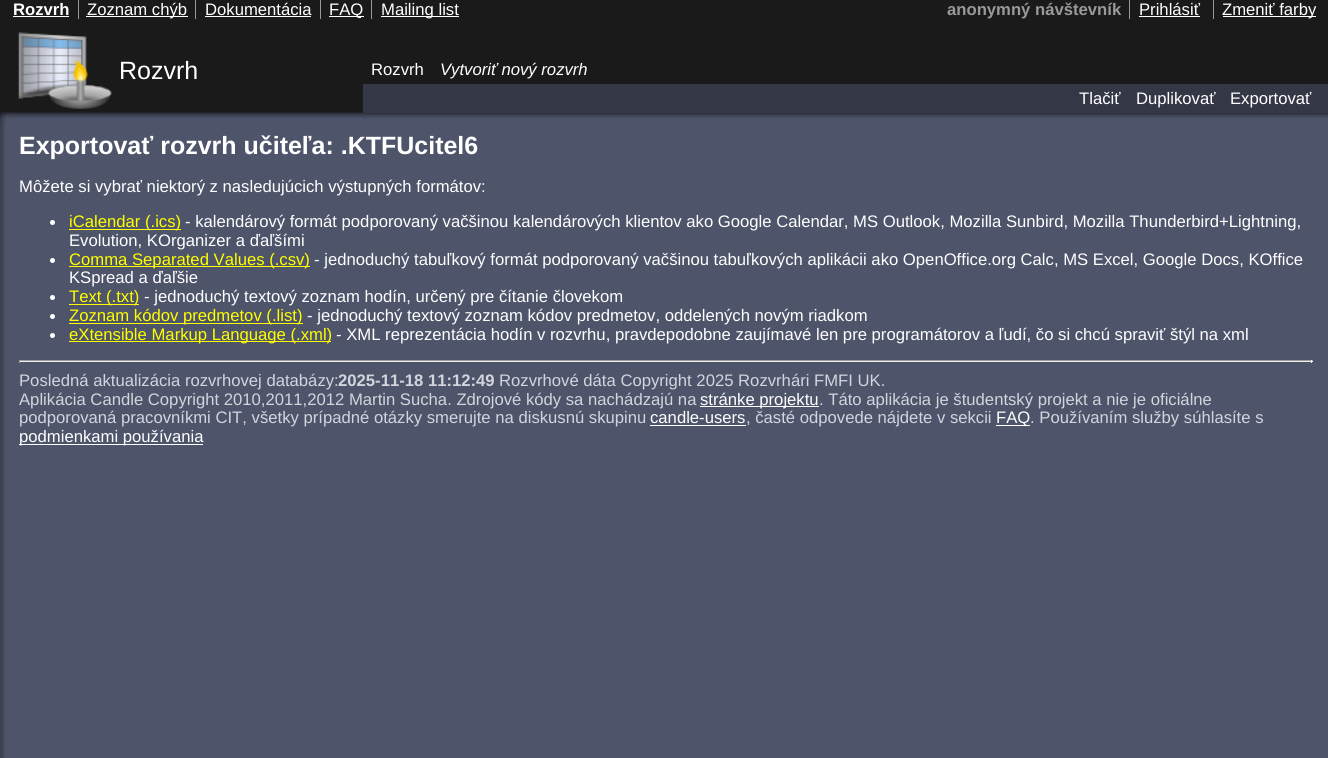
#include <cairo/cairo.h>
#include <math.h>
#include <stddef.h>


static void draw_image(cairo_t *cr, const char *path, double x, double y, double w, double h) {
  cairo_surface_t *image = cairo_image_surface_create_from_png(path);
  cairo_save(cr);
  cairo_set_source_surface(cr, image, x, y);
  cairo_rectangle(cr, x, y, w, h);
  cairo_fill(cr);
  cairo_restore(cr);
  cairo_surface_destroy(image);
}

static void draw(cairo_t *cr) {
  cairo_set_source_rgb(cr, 78 / 255.0, 84 / 255.0, 106 / 255.0);
  cairo_paint(cr);
  draw_image(cr, "images/1.png", 0, 446, 5, 312);
  draw_image(cr, "images/2.png", 0, 125, 5, 321);
  cairo_set_source_rgb(cr, 26 / 255.0, 26 / 255.0, 26 / 255.0);
  cairo_rectangle(cr, 0, 0, 1328, 113);
  cairo_fill(cr);
  cairo_set_source_rgb(cr, 1, 1, 1);
  cairo_rectangle(cr, 13, 16, 56, 1);
  cairo_fill(cr);
  cairo_set_source_rgb(cr, 153 / 255.0, 153 / 255.0, 153 / 255.0);
  cairo_rectangle(cr, 78, 0, 1, 19);
  cairo_fill(cr);
  cairo_set_source_rgb(cr, 1, 1, 1);
  cairo_rectangle(cr, 86, 16, 102, 1);
  cairo_fill(cr);
  cairo_set_source_rgb(cr, 153 / 255.0, 153 / 255.0, 153 / 255.0);
  cairo_rectangle(cr, 195, 0, 1, 19);
  cairo_fill(cr);
  cairo_set_source_rgb(cr, 1, 1, 1);
  cairo_rectangle(cr, 205, 16, 106, 1);
  cairo_fill(cr);
  cairo_set_source_rgb(cr, 153 / 255.0, 153 / 255.0, 153 / 255.0);
  cairo_rectangle(cr, 320, 0, 1, 19);
  cairo_fill(cr);
  cairo_set_source_rgb(cr, 1, 1, 1);
  cairo_rectangle(cr, 329, 16, 35, 1);
  cairo_fill(cr);
  cairo_set_source_rgb(cr, 153 / 255.0, 153 / 255.0, 153 / 255.0);
  cairo_rectangle(cr, 371, 0, 1, 19);
  cairo_fill(cr);
  cairo_set_source_rgb(cr, 1, 1, 1);
  cairo_rectangle(cr, 381, 16, 78, 1);
  cairo_fill(cr);
  cairo_set_source_rgb(cr, 153 / 255.0, 153 / 255.0, 153 / 255.0);
  cairo_rectangle(cr, 1129, 0, 1, 19);
  cairo_fill(cr);
  cairo_set_source_rgb(cr, 1, 1, 1);
  cairo_rectangle(cr, 1139, 16, 61, 1);
  cairo_fill(cr);
  cairo_set_source_rgb(cr, 153 / 255.0, 153 / 255.0, 153 / 255.0);
  cairo_rectangle(cr, 1213, 0, 1, 19);
  cairo_fill(cr);
  cairo_set_source_rgb(cr, 1, 1, 1);
  cairo_rectangle(cr, 1223, 16, 93, 1);
  cairo_fill(cr);
  draw_image(cr, "images/3.png", 18, 32, 94, 77);
  draw_image(cr, "images/4.png", 0, 112, 1328, 11);
  cairo_set_source_rgb(cr, 52 / 255.0, 56 / 255.0, 70 / 255.0);
  cairo_rectangle(cr, 363, 84, 965, 29);
  cairo_fill(cr);
  draw_image(cr, "images/5.png", 0, 112, 12, 13);
  cairo_set_source_rgb(cr, 1, 1, 1);
  cairo_arc(cr, 52.5, 222.5, 2.5, 0, 2 * M_PI);
  cairo_fill(cr);
  cairo_set_source_rgb(cr, 1, 1, 0);
  cairo_rectangle(cr, 69, 229, 112, 1);
  cairo_fill(cr);
  cairo_set_source_rgb(cr, 1, 1, 1);
  cairo_arc(cr, 52.5, 260.5, 2.5, 0, 2 * M_PI);
  cairo_fill(cr);
  cairo_set_source_rgb(cr, 1, 1, 0);
  cairo_rectangle(cr, 69, 266, 241, 1);
  cairo_fill(cr);
  cairo_set_source_rgb(cr, 1, 1, 1);
  cairo_arc(cr, 52.5, 297.5, 2.5, 0, 2 * M_PI);
  cairo_fill(cr);
  cairo_set_source_rgb(cr, 1, 1, 0);
  cairo_rectangle(cr, 69, 304, 70, 1);
  cairo_fill(cr);
  cairo_set_source_rgb(cr, 1, 1, 1);
  cairo_arc(cr, 52.5, 316.5, 2.5, 0, 2 * M_PI);
  cairo_fill(cr);
  cairo_set_source_rgb(cr, 1, 1, 0);
  cairo_rectangle(cr, 69, 323, 234, 1);
  cairo_fill(cr);
  cairo_set_source_rgb(cr, 1, 1, 1);
  cairo_arc(cr, 52.5, 335.5, 2.5, 0, 2 * M_PI);
  cairo_fill(cr);
  cairo_set_source_rgb(cr, 1, 1, 0);
  cairo_rectangle(cr, 69, 341, 262, 1);
  cairo_fill(cr);
  cairo_set_source_rgb(cr, 159 / 255.0, 159 / 255.0, 159 / 255.0);
  cairo_rectangle(cr, 19, 360, 1294, 1);
  cairo_fill(cr);
  cairo_set_source_rgb(cr, 238 / 255.0, 238 / 255.0, 238 / 255.0);
  cairo_rectangle(cr, 1311, 360, 1, 3);
  cairo_fill(cr);
  cairo_rectangle(cr, 19, 361, 1294, 1);
  cairo_fill(cr);
  cairo_set_source_rgb(cr, 159 / 255.0, 159 / 255.0, 159 / 255.0);
  cairo_rectangle(cr, 19, 360, 1, 3);
  cairo_fill(cr);
  cairo_set_source_rgb(cr, 1, 1, 1);
  cairo_rectangle(cr, 700, 406, 119, 1);
  cairo_fill(cr);
  cairo_rectangle(cr, 650, 425, 96, 1);
  cairo_fill(cr);
  cairo_rectangle(cr, 996, 425, 34, 1);
  cairo_fill(cr);
  cairo_rectangle(cr, 19, 444, 184, 1);
  cairo_fill(cr);
  cairo_select_font_face(cr, "Liberation Sans", CAIRO_FONT_SLANT_NORMAL, CAIRO_FONT_WEIGHT_BOLD);
  cairo_set_font_size(cr, 16.67);
  cairo_move_to(cr, 13, 15);
  cairo_show_text(cr, "Rozvrh");
  cairo_select_font_face(cr, "Liberation Sans", CAIRO_FONT_SLANT_NORMAL, CAIRO_FONT_WEIGHT_NORMAL);
  cairo_move_to(cr, 87, 15);
  cairo_show_text(cr, "Zoznam chýb");
  cairo_move_to(cr, 205, 15);
  cairo_show_text(cr, "Dokumentácia");
  cairo_move_to(cr, 329, 15);
  cairo_show_text(cr, "FAQ");
  cairo_move_to(cr, 381, 15);
  cairo_show_text(cr, "Mailing list");
  cairo_select_font_face(cr, "Liberation Sans", CAIRO_FONT_SLANT_NORMAL, CAIRO_FONT_WEIGHT_BOLD);
  cairo_set_source_rgb(cr, 153 / 255.0, 153 / 255.0, 153 / 255.0);
  cairo_move_to(cr, 947, 15);
  cairo_show_text(cr, "anonymný návštevník");
  cairo_select_font_face(cr, "Liberation Sans", CAIRO_FONT_SLANT_NORMAL, CAIRO_FONT_WEIGHT_NORMAL);
  cairo_set_source_rgb(cr, 1, 1, 1);
  cairo_move_to(cr, 1139, 15);
  cairo_show_text(cr, "Prihlásiť");
  cairo_move_to(cr, 1222, 15);
  cairo_show_text(cr, "Zmeniť farby");
  cairo_set_font_size(cr, 25);
  cairo_move_to(cr, 119, 79);
  cairo_show_text(cr, "Rozvrh");
  cairo_set_font_size(cr, 16.67);
  cairo_move_to(cr, 371, 75);
  cairo_show_text(cr, "Rozvrh");
  cairo_select_font_face(cr, "Liberation Sans", CAIRO_FONT_SLANT_ITALIC, CAIRO_FONT_WEIGHT_NORMAL);
  cairo_move_to(cr, 440, 75);
  cairo_show_text(cr, "Vytvoriť nový rozvrh");
  cairo_select_font_face(cr, "Liberation Sans", CAIRO_FONT_SLANT_NORMAL, CAIRO_FONT_WEIGHT_NORMAL);
  cairo_move_to(cr, 1079, 104);
  cairo_show_text(cr, "Tlačiť");
  cairo_move_to(cr, 1136, 104);
  cairo_show_text(cr, "Duplikovať");
  cairo_move_to(cr, 1230, 104);
  cairo_show_text(cr, "Exportovať");
  cairo_select_font_face(cr, "Liberation Sans", CAIRO_FONT_SLANT_NORMAL, CAIRO_FONT_WEIGHT_BOLD);
  cairo_set_font_size(cr, 25);
  cairo_move_to(cr, 19, 154);
  cairo_show_text(cr, "Exportovať rozvrh učiteľa: .KTFUcitel6");
  cairo_select_font_face(cr, "Liberation Sans", CAIRO_FONT_SLANT_NORMAL, CAIRO_FONT_WEIGHT_NORMAL);
  cairo_set_font_size(cr, 16.67);
  cairo_move_to(cr, 19, 192);
  cairo_show_text(cr, "Môžete si vybrať niektorý z nasledujúcich výstupných formátov:");
  cairo_set_source_rgb(cr, 1, 1, 0);
  cairo_move_to(cr, 69, 227);
  cairo_show_text(cr, "iCalendar (.ics)");
  cairo_set_source_rgb(cr, 1, 1, 1);
  cairo_move_to(cr, 185, 227);
  cairo_show_text(cr, "- kalendárový formát podporovaný vačšinou kalendárových klientov ako Google Calendar, MS Outlook, Mozilla Sunbird, Mozilla Thunderbird+Lightning,");
  cairo_move_to(cr, 69, 246);
  cairo_show_text(cr, "Evolution, KOrganizer a ďaľšími");
  cairo_set_source_rgb(cr, 1, 1, 0);
  cairo_move_to(cr, 69, 265);
  cairo_show_text(cr, "Comma Separated Values (.csv)");
  cairo_set_source_rgb(cr, 1, 1, 1);
  cairo_move_to(cr, 314, 265);
  cairo_show_text(cr, "- jednoduchý tabuľkový formát podporovaný vačšinou tabuľkových aplikácii ako OpenOffice.org Calc, MS Excel, Google Docs, KOffice");
  cairo_move_to(cr, 69, 283);
  cairo_show_text(cr, "KSpread a ďaľšie");
  cairo_set_source_rgb(cr, 1, 1, 0);
  cairo_move_to(cr, 69, 302);
  cairo_show_text(cr, "Text (.txt)");
  cairo_set_source_rgb(cr, 1, 1, 1);
  cairo_move_to(cr, 144, 302);
  cairo_show_text(cr, "- jednoduchý textový zoznam hodín, určený pre čítanie človekom");
  cairo_set_source_rgb(cr, 1, 1, 0);
  cairo_move_to(cr, 69, 321);
  cairo_show_text(cr, "Zoznam kódov predmetov (.list)");
  cairo_set_source_rgb(cr, 1, 1, 1);
  cairo_move_to(cr, 307, 321);
  cairo_show_text(cr, "- jednoduchý textový zoznam kódov predmetov, oddelených novým riadkom");
  cairo_set_source_rgb(cr, 1, 1, 0);
  cairo_move_to(cr, 69, 340);
  cairo_show_text(cr, "eXtensible Markup Language (.xml)");
  cairo_set_source_rgb(cr, 1, 1, 1);
  cairo_move_to(cr, 336, 340);
  cairo_show_text(cr, "- XML reprezentácia hodín v rozvrhu, pravdepodobne zaujímavé len pre programátorov a ľudí, čo si chcú spraviť štýl na xml");
  cairo_set_source_rgb(cr, 211 / 255.0, 213 / 255.0, 221 / 255.0);
  cairo_move_to(cr, 19, 386);
  cairo_show_text(cr, "Posledná aktualizácia rozvrhovej databázy:");
  cairo_select_font_face(cr, "Liberation Sans", CAIRO_FONT_SLANT_NORMAL, CAIRO_FONT_WEIGHT_BOLD);
  cairo_move_to(cr, 338, 386);
  cairo_show_text(cr, "2025-11-18 11:12:49");
  cairo_select_font_face(cr, "Liberation Sans", CAIRO_FONT_SLANT_NORMAL, CAIRO_FONT_WEIGHT_NORMAL);
  cairo_move_to(cr, 499, 386);
  cairo_show_text(cr, "Rozvrhové dáta Copyright 2025 Rozvrhári FMFI UK.");
  cairo_move_to(cr, 19, 405);
  cairo_show_text(cr, "Aplikácia Candle Copyright 2010,2011,2012 Martin Sucha. Zdrojové kódy sa nachádzajú na");
  cairo_set_source_rgb(cr, 1, 1, 1);
  cairo_move_to(cr, 700, 405);
  cairo_show_text(cr, "stránke projektu");
  cairo_set_source_rgb(cr, 211 / 255.0, 213 / 255.0, 221 / 255.0);
  cairo_move_to(cr, 819, 405);
  cairo_show_text(cr, ". Táto aplikácia je študentský projekt a nie je oficiálne");
  cairo_move_to(cr, 19, 423);
  cairo_show_text(cr, "podporovaná pracovníkmi CIT, všetky prípadné otázky smerujte na diskusnú skupinu");
  cairo_set_source_rgb(cr, 1, 1, 1);
  cairo_move_to(cr, 650, 423);
  cairo_show_text(cr, "candle-users");
  cairo_set_source_rgb(cr, 211 / 255.0, 213 / 255.0, 221 / 255.0);
  cairo_move_to(cr, 746, 423);
  cairo_show_text(cr, ", časté odpovede nájdete v sekcii");
  cairo_set_source_rgb(cr, 1, 1, 1);
  cairo_move_to(cr, 996, 423);
  cairo_show_text(cr, "FAQ");
  cairo_set_source_rgb(cr, 211 / 255.0, 213 / 255.0, 221 / 255.0);
  cairo_move_to(cr, 1030, 423);
  cairo_show_text(cr, ". Používaním služby súhlasíte s");
  cairo_set_source_rgb(cr, 1, 1, 1);
  cairo_move_to(cr, 19, 442);
  cairo_show_text(cr, "podmienkami používania");
}

int main(void) {
  cairo_surface_t *surface = cairo_image_surface_create(CAIRO_FORMAT_RGB24, 1328, 758);
  cairo_t *cr = cairo_create(surface);
  cairo_font_options_t *options = cairo_font_options_create();
  cairo_font_options_set_hint_metrics(options, CAIRO_HINT_METRICS_OFF);
  cairo_font_options_set_hint_style(options, CAIRO_HINT_STYLE_NONE);
  cairo_set_font_options(cr, options);
  cairo_set_miter_limit(cr, 4);
  draw(cr);
  cairo_surface_write_to_png(surface, "out.png");
  cairo_font_options_destroy(options);
  cairo_destroy(cr);
  cairo_surface_destroy(surface);
  return 0;
}
